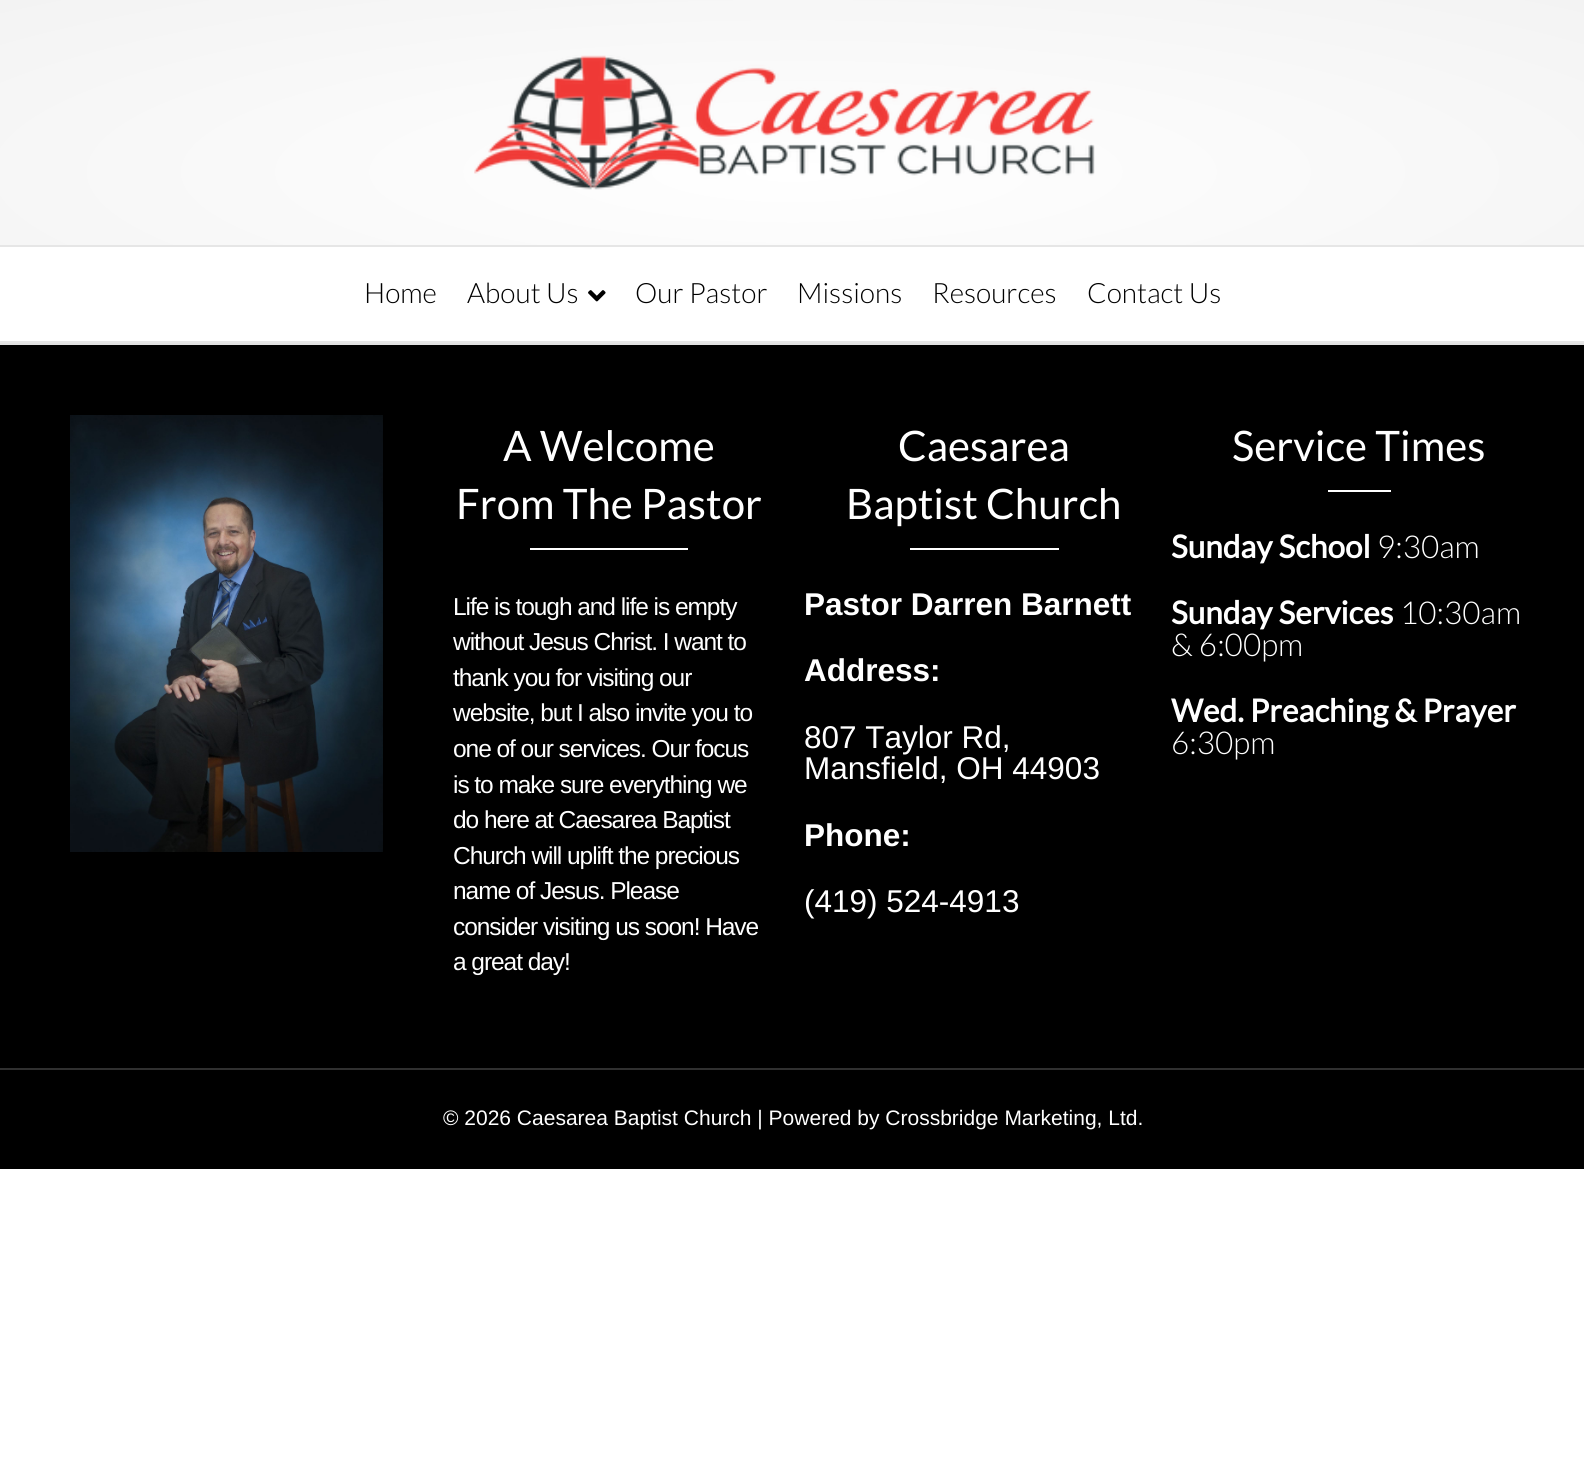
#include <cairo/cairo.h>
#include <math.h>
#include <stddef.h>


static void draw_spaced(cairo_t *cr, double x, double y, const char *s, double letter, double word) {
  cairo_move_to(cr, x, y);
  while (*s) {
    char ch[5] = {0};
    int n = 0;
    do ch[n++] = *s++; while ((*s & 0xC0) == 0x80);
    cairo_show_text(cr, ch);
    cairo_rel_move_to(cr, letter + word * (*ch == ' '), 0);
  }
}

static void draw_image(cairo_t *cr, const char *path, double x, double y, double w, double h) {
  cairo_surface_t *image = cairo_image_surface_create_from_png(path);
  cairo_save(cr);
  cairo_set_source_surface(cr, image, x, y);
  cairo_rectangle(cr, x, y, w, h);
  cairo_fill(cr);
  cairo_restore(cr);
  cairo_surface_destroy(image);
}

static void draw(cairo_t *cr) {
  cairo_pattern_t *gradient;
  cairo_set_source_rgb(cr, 1, 1, 1);
  cairo_paint(cr);
  gradient = cairo_pattern_create_radial(0, 0, 0, 0, 0, 1);
  cairo_pattern_set_matrix(gradient, &(cairo_matrix_t){1.0 / 1121, 0, 0, 1.0 / 243, -1.0 * 793 / 1121, -1.0 * 172 / 243});
  cairo_pattern_add_color_stop_rgba(gradient, 0, 1, 1, 1, 1);
  cairo_pattern_add_color_stop_rgba(gradient, 1, 243 / 255.0, 243 / 255.0, 243 / 255.0, 1);
  cairo_set_source(cr, gradient);
  cairo_pattern_destroy(gradient);
  cairo_rectangle(cr, 0, 0, 1584, 245);
  cairo_fill(cr);
  draw_image(cr, "images/1.png", 474, 55, 621, 135);
  cairo_set_source_rgb(cr, 230 / 255.0, 230 / 255.0, 230 / 255.0);
  cairo_rectangle(cr, 0, 245, 1584, 2);
  cairo_fill(cr);
  cairo_rectangle(cr, 0, 341, 1584, 2);
  cairo_fill(cr);
  draw_image(cr, "images/2.png", 588, 290, 18, 12);
  cairo_set_source_rgb(cr, 226 / 255.0, 226 / 255.0, 226 / 255.0);
  cairo_rectangle(cr, 0, 343, 1584, 2);
  cairo_fill(cr);
  cairo_set_source_rgb(cr, 0, 0, 0);
  cairo_rectangle(cr, 0, 345, 1584, 723);
  cairo_fill(cr);
  draw_image(cr, "images/3.png", 70, 415, 313, 437);
  cairo_set_source_rgb(cr, 1, 1, 1);
  cairo_rectangle(cr, 530, 548, 158, 2);
  cairo_fill(cr);
  cairo_rectangle(cr, 910, 548, 149, 2);
  cairo_fill(cr);
  cairo_rectangle(cr, 1328, 490, 63, 2);
  cairo_fill(cr);
  cairo_set_source_rgb(cr, 0, 0, 0);
  cairo_rectangle(cr, 0, 1070, 1584, 99);
  cairo_fill(cr);
  cairo_set_source_rgb(cr, 48 / 255.0, 48 / 255.0, 48 / 255.0);
  cairo_rectangle(cr, 0, 1068, 1584, 2);
  cairo_fill(cr);
  cairo_select_font_face(cr, "Lato Light", CAIRO_FONT_SLANT_NORMAL, CAIRO_FONT_WEIGHT_NORMAL);
  cairo_set_font_size(cr, 28);
  cairo_set_source_rgb(cr, 0, 0, 0);
  cairo_move_to(cr, 364, 303);
  cairo_show_text(cr, "Home");
  cairo_move_to(cr, 467, 303);
  cairo_show_text(cr, "About Us");
  cairo_move_to(cr, 635, 303);
  cairo_show_text(cr, "Our Pastor");
  cairo_move_to(cr, 797, 303);
  cairo_show_text(cr, "Missions");
  cairo_move_to(cr, 932, 303);
  cairo_show_text(cr, "Resources");
  cairo_move_to(cr, 1087, 303);
  cairo_show_text(cr, "Contact Us");
  cairo_select_font_face(cr, "Lato", CAIRO_FONT_SLANT_NORMAL, CAIRO_FONT_WEIGHT_NORMAL);
  cairo_set_font_size(cr, 42);
  cairo_set_source_rgb(cr, 1, 1, 1);
  cairo_move_to(cr, 503, 461);
  cairo_show_text(cr, "A Welcome");
  cairo_move_to(cr, 456, 519);
  cairo_show_text(cr, "From The Pastor");
  cairo_select_font_face(cr, "Liberation Sans", CAIRO_FONT_SLANT_NORMAL, CAIRO_FONT_WEIGHT_NORMAL);
  cairo_set_font_size(cr, 24.5);
  draw_spaced(cr, 453, 615, "Life is tough and life is empty", -1.05, 0);
  draw_spaced(cr, 453, 650, "without Jesus Christ. I want to", -1.05, 0);
  draw_spaced(cr, 453, 686, "thank you for visiting our", -1.05, 0);
  draw_spaced(cr, 453, 721, "website, but I also invite you to", -1.05, 0);
  draw_spaced(cr, 453, 757, "one of our services. Our focus", -1.05, 0);
  draw_spaced(cr, 453, 793, "is to make sure everything we", -1.05, 0);
  draw_spaced(cr, 453, 828, "do here at Caesarea Baptist", -1.05, 0);
  draw_spaced(cr, 453, 864, "Church will uplift the precious", -1.05, 0);
  draw_spaced(cr, 453, 899, "name of Jesus. Please", -1.05, 0);
  draw_spaced(cr, 453, 935, "consider visiting us soon! Have", -1.05, 0);
  draw_spaced(cr, 453, 970, "a great day!", -1.05, 0);
  cairo_select_font_face(cr, "Lato", CAIRO_FONT_SLANT_NORMAL, CAIRO_FONT_WEIGHT_NORMAL);
  cairo_set_font_size(cr, 42);
  cairo_move_to(cr, 898, 461);
  cairo_show_text(cr, "Caesarea");
  cairo_move_to(cr, 846, 519);
  cairo_show_text(cr, "Baptist Church");
  cairo_select_font_face(cr, "Liberation Sans", CAIRO_FONT_SLANT_NORMAL, CAIRO_FONT_WEIGHT_BOLD);
  cairo_set_font_size(cr, 31.5);
  cairo_move_to(cr, 804, 615);
  cairo_show_text(cr, "Pastor Darren Barnett");
  cairo_move_to(cr, 804, 681);
  cairo_show_text(cr, "Address:");
  cairo_select_font_face(cr, "Liberation Sans", CAIRO_FONT_SLANT_NORMAL, CAIRO_FONT_WEIGHT_NORMAL);
  cairo_move_to(cr, 804, 748);
  cairo_show_text(cr, "807 Taylor Rd,");
  cairo_move_to(cr, 804, 779);
  cairo_show_text(cr, "Mansfield, OH 44903");
  cairo_select_font_face(cr, "Liberation Sans", CAIRO_FONT_SLANT_NORMAL, CAIRO_FONT_WEIGHT_BOLD);
  cairo_move_to(cr, 804, 846);
  cairo_show_text(cr, "Phone:");
  cairo_select_font_face(cr, "Liberation Sans", CAIRO_FONT_SLANT_NORMAL, CAIRO_FONT_WEIGHT_NORMAL);
  cairo_move_to(cr, 804, 912);
  cairo_show_text(cr, "(419) 524-4913");
  cairo_select_font_face(cr, "Lato", CAIRO_FONT_SLANT_NORMAL, CAIRO_FONT_WEIGHT_NORMAL);
  cairo_set_font_size(cr, 42);
  cairo_move_to(cr, 1232, 461);
  cairo_show_text(cr, "Service Times");
  cairo_select_font_face(cr, "Lato", CAIRO_FONT_SLANT_NORMAL, CAIRO_FONT_WEIGHT_BOLD);
  cairo_set_font_size(cr, 31.5);
  cairo_move_to(cr, 1171, 558);
  cairo_show_text(cr, "Sunday School");
  cairo_select_font_face(cr, "Lato Light", CAIRO_FONT_SLANT_NORMAL, CAIRO_FONT_WEIGHT_NORMAL);
  cairo_move_to(cr, 1377, 558);
  cairo_show_text(cr, "9:30am");
  cairo_select_font_face(cr, "Lato", CAIRO_FONT_SLANT_NORMAL, CAIRO_FONT_WEIGHT_BOLD);
  cairo_move_to(cr, 1171, 624);
  cairo_show_text(cr, "Sunday Services");
  cairo_select_font_face(cr, "Lato Light", CAIRO_FONT_SLANT_NORMAL, CAIRO_FONT_WEIGHT_NORMAL);
  cairo_move_to(cr, 1400, 624);
  cairo_show_text(cr, "10:30am");
  cairo_move_to(cr, 1171, 656);
  cairo_show_text(cr, "& 6:00pm");
  cairo_select_font_face(cr, "Lato", CAIRO_FONT_SLANT_NORMAL, CAIRO_FONT_WEIGHT_BOLD);
  cairo_move_to(cr, 1171, 722);
  cairo_show_text(cr, "Wed. Preaching & Prayer");
  cairo_select_font_face(cr, "Lato Light", CAIRO_FONT_SLANT_NORMAL, CAIRO_FONT_WEIGHT_NORMAL);
  cairo_move_to(cr, 1171, 754);
  cairo_show_text(cr, "6:30pm");
  cairo_select_font_face(cr, "Liberation Sans", CAIRO_FONT_SLANT_NORMAL, CAIRO_FONT_WEIGHT_NORMAL);
  cairo_set_font_size(cr, 21);
  cairo_move_to(cr, 443, 1125);
  cairo_show_text(cr, "© 2026 Caesarea Baptist Church | Powered by Crossbridge Marketing, Ltd.");
}

int main(void) {
  cairo_surface_t *surface = cairo_image_surface_create(CAIRO_FORMAT_RGB24, 1584, 1465);
  cairo_t *cr = cairo_create(surface);
  cairo_font_options_t *options = cairo_font_options_create();
  cairo_font_options_set_hint_metrics(options, CAIRO_HINT_METRICS_OFF);
  cairo_font_options_set_hint_style(options, CAIRO_HINT_STYLE_NONE);
  cairo_set_font_options(cr, options);
  cairo_set_miter_limit(cr, 4);
  draw(cr);
  cairo_surface_write_to_png(surface, "out.png");
  cairo_font_options_destroy(options);
  cairo_destroy(cr);
  cairo_surface_destroy(surface);
  return 0;
}
